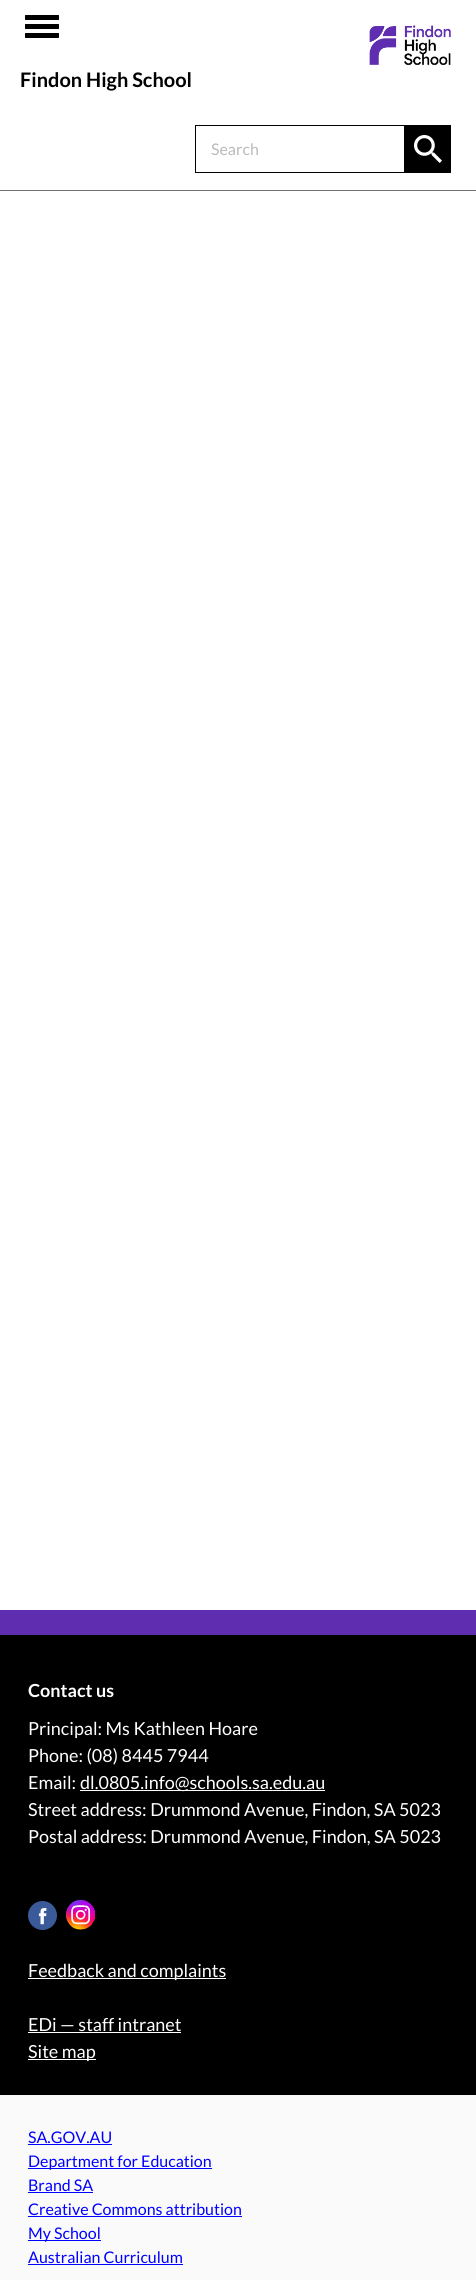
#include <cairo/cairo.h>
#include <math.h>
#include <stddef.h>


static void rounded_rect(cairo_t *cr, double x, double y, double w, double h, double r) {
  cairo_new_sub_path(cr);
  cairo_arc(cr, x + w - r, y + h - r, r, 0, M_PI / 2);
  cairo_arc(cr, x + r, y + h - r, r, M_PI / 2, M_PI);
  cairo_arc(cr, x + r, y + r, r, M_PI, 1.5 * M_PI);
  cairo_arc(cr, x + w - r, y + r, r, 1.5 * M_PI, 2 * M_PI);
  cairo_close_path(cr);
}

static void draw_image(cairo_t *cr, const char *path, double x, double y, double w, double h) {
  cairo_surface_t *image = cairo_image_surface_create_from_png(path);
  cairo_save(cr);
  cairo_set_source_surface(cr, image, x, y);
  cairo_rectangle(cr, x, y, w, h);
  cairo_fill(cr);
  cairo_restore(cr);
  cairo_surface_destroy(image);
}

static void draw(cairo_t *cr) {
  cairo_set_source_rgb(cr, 1, 1, 1);
  cairo_paint(cr);
  cairo_set_source_rgb(cr, 112 / 255.0, 112 / 255.0, 112 / 255.0);
  cairo_rectangle(cr, 0, 190, 476, 1);
  cairo_fill(cr);
  cairo_set_source_rgb(cr, 0, 0, 0);
  rounded_rect(cr, 25, 15, 34, 5, 0.5);
  cairo_fill(cr);
  rounded_rect(cr, 25, 24, 34, 5, 0.5);
  cairo_fill(cr);
  rounded_rect(cr, 25, 33, 34, 5, 0.5);
  cairo_fill(cr);
  draw_image(cr, "images/1.png", 369, 25, 82, 40);
  cairo_rectangle(cr, 195.5, 125.5, 209, 47);
  cairo_set_line_width(cr, 1);
  cairo_stroke(cr);
  cairo_rectangle(cr, 405, 125, 46, 48);
  cairo_fill(cr);
  draw_image(cr, "images/2.png", 414, 135, 28, 28);
  cairo_rectangle(cr, 0, 1635, 476, 460);
  cairo_fill(cr);
  cairo_set_source_rgb(cr, 95 / 255.0, 45 / 255.0, 175 / 255.0);
  cairo_rectangle(cr, 0, 1610, 476, 25);
  cairo_fill(cr);
  cairo_set_source_rgb(cr, 1, 1, 1);
  cairo_rectangle(cr, 80, 1790, 245, 1);
  cairo_fill(cr);
  draw_image(cr, "images/3.png", 28, 1901, 29, 29);
  draw_image(cr, "images/4.png", 66, 1900, 29, 30);
  cairo_rectangle(cr, 28, 1978, 198, 1);
  cairo_fill(cr);
  cairo_rectangle(cr, 28, 2032, 153, 1);
  cairo_fill(cr);
  cairo_rectangle(cr, 28, 2059, 68, 1);
  cairo_fill(cr);
  cairo_set_source_rgb(cr, 250 / 255.0, 250 / 255.0, 250 / 255.0);
  cairo_rectangle(cr, 0, 2095, 476, 185);
  cairo_fill(cr);
  cairo_set_source_rgb(cr, 0, 0, 1);
  cairo_rectangle(cr, 28, 2144, 84, 1);
  cairo_fill(cr);
  cairo_rectangle(cr, 28, 2168, 184, 1);
  cairo_fill(cr);
  cairo_rectangle(cr, 28, 2192, 65, 1);
  cairo_fill(cr);
  cairo_rectangle(cr, 28, 2216, 214, 1);
  cairo_fill(cr);
  cairo_rectangle(cr, 28, 2240, 73, 1);
  cairo_fill(cr);
  cairo_rectangle(cr, 28, 2264, 155, 1);
  cairo_fill(cr);
  cairo_select_font_face(cr, "Lato", CAIRO_FONT_SLANT_NORMAL, CAIRO_FONT_WEIGHT_BOLD);
  cairo_set_font_size(cr, 20);
  cairo_set_source_rgb(cr, 0, 0, 0);
  cairo_move_to(cr, 20, 87);
  cairo_show_text(cr, "Findon High School");
  cairo_select_font_face(cr, "Lato", CAIRO_FONT_SLANT_NORMAL, CAIRO_FONT_WEIGHT_NORMAL);
  cairo_set_font_size(cr, 16);
  cairo_set_source_rgb(cr, 186 / 255.0, 186 / 255.0, 186 / 255.0);
  cairo_move_to(cr, 211, 155);
  cairo_show_text(cr, "Search");
  cairo_select_font_face(cr, "Lato", CAIRO_FONT_SLANT_NORMAL, CAIRO_FONT_WEIGHT_BOLD);
  cairo_set_font_size(cr, 18);
  cairo_set_source_rgb(cr, 1, 1, 1);
  cairo_move_to(cr, 28, 1697);
  cairo_show_text(cr, "Contact us");
  cairo_select_font_face(cr, "Lato", CAIRO_FONT_SLANT_NORMAL, CAIRO_FONT_WEIGHT_NORMAL);
  cairo_move_to(cr, 28, 1735);
  cairo_show_text(cr, "Principal: Ms Kathleen Hoare");
  cairo_move_to(cr, 28, 1762);
  cairo_show_text(cr, "Phone: (08) 8445 7944");
  cairo_move_to(cr, 28, 1789);
  cairo_show_text(cr, "Email:");
  cairo_move_to(cr, 80, 1789);
  cairo_show_text(cr, "dl.0805.info@schools.sa.edu.au");
  cairo_move_to(cr, 28, 1816);
  cairo_show_text(cr, "Street address: Drummond Avenue, Findon, SA 5023");
  cairo_move_to(cr, 28, 1843);
  cairo_show_text(cr, "Postal address: Drummond Avenue, Findon, SA 5023");
  cairo_move_to(cr, 28, 1977);
  cairo_show_text(cr, "Feedback and complaints");
  cairo_move_to(cr, 28, 2031);
  cairo_show_text(cr, "EDi — staff intranet");
  cairo_move_to(cr, 28, 2058);
  cairo_show_text(cr, "Site map");
  cairo_set_font_size(cr, 16);
  cairo_set_source_rgb(cr, 0, 0, 1);
  cairo_move_to(cr, 28, 2143);
  cairo_show_text(cr, "SA.GOV.AU");
  cairo_move_to(cr, 28, 2167);
  cairo_show_text(cr, "Department for Education");
  cairo_move_to(cr, 28, 2191);
  cairo_show_text(cr, "Brand SA");
  cairo_move_to(cr, 28, 2215);
  cairo_show_text(cr, "Creative Commons attribution");
  cairo_move_to(cr, 28, 2239);
  cairo_show_text(cr, "My School");
  cairo_move_to(cr, 28, 2263);
  cairo_show_text(cr, "Australian Curriculum");
}

int main(void) {
  cairo_surface_t *surface = cairo_image_surface_create(CAIRO_FORMAT_RGB24, 476, 2280);
  cairo_t *cr = cairo_create(surface);
  cairo_font_options_t *options = cairo_font_options_create();
  cairo_font_options_set_hint_metrics(options, CAIRO_HINT_METRICS_OFF);
  cairo_font_options_set_hint_style(options, CAIRO_HINT_STYLE_NONE);
  cairo_set_font_options(cr, options);
  cairo_set_miter_limit(cr, 4);
  draw(cr);
  cairo_surface_write_to_png(surface, "out.png");
  cairo_font_options_destroy(options);
  cairo_destroy(cr);
  cairo_surface_destroy(surface);
  return 0;
}
